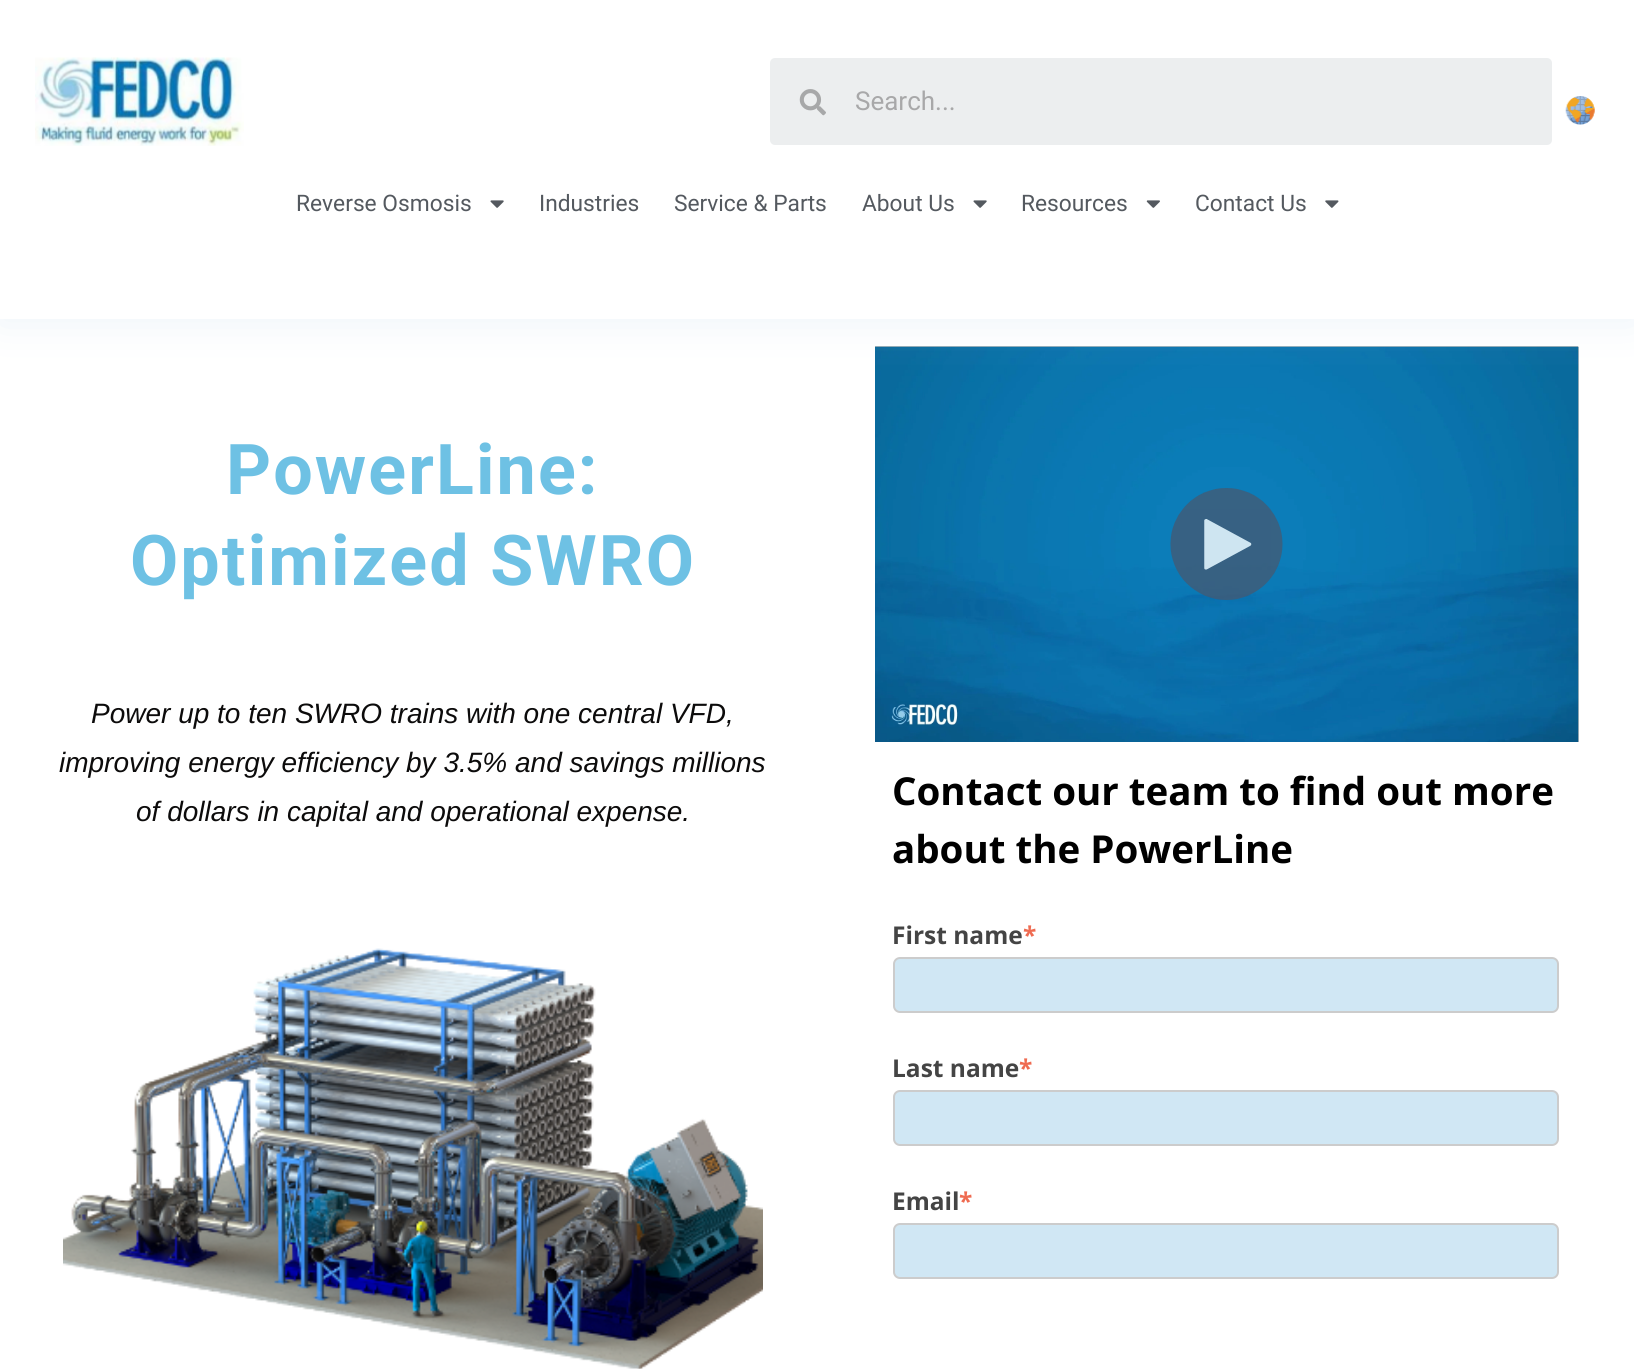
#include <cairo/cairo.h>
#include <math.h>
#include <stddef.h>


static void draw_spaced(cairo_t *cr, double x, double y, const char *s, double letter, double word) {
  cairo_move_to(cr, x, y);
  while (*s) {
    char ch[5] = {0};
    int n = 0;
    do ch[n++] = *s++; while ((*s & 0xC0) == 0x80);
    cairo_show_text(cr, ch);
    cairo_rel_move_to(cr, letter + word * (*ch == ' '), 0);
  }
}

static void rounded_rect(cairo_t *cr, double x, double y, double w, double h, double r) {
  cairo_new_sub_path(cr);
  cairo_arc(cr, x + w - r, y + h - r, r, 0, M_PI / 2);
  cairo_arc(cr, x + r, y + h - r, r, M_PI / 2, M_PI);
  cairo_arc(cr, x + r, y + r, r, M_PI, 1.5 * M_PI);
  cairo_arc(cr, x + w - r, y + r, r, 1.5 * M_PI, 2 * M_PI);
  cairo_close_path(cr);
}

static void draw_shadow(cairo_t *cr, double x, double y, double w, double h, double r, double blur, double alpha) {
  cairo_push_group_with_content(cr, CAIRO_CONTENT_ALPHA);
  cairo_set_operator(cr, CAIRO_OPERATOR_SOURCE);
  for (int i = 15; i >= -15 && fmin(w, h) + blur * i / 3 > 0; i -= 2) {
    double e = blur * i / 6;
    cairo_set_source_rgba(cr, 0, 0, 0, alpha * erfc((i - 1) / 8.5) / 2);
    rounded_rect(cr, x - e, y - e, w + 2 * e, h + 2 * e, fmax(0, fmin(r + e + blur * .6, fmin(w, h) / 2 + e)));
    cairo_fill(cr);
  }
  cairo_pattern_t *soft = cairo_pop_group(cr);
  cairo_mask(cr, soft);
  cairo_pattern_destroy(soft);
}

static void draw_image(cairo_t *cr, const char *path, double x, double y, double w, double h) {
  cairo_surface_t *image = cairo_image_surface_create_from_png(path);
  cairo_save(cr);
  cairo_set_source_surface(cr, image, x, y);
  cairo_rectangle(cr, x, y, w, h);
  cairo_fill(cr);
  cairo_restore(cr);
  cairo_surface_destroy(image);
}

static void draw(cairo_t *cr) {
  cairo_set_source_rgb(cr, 1, 1, 1);
  cairo_paint(cr);
  draw_image(cr, "images/8.png", 875, 346, 704, 396);
  cairo_set_source_rgb(cr, 196 / 255.0, 220 / 255.0, 237 / 255.0);
  draw_shadow(cr, 0, 0, 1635, 319, 0, 21, 0.35);
  cairo_set_source_rgb(cr, 1, 1, 1);
  cairo_rectangle(cr, 0, 0, 1634, 319);
  cairo_fill(cr);
  draw_image(cr, "images/1.png", 35, 57, 209, 89);
  cairo_set_source_rgb(cr, 236 / 255.0, 238 / 255.0, 239 / 255.0);
  rounded_rect(cr, 770, 58, 782, 87, 5);
  cairo_fill(cr);
  draw_image(cr, "images/2.png", 799, 89, 27, 27);
  draw_image(cr, "images/3.png", 1565, 96, 30, 29);
  draw_image(cr, "images/4.png", 490, 200, 14, 8);
  draw_image(cr, "images/4.png", 973, 200, 14, 8);
  draw_image(cr, "images/5.png", 1146, 200, 14, 8);
  draw_image(cr, "images/6.png", 1325, 200, 14, 8);
  draw_image(cr, "images/7.png", 63, 948, 700, 421);
  cairo_set_source_rgb(cr, 208 / 255.0, 231 / 255.0, 244 / 255.0);
  rounded_rect(cr, 894, 958, 664, 54, 6);
  cairo_fill_preserve(cr);
  cairo_set_source_rgb(cr, 204 / 255.0, 204 / 255.0, 204 / 255.0);
  cairo_stroke(cr);
  cairo_set_source_rgb(cr, 208 / 255.0, 231 / 255.0, 244 / 255.0);
  rounded_rect(cr, 894, 1091, 664, 54, 6);
  cairo_fill_preserve(cr);
  cairo_set_source_rgb(cr, 204 / 255.0, 204 / 255.0, 204 / 255.0);
  cairo_stroke(cr);
  cairo_set_source_rgb(cr, 208 / 255.0, 231 / 255.0, 244 / 255.0);
  rounded_rect(cr, 894, 1224, 664, 54, 6);
  cairo_fill_preserve(cr);
  cairo_set_source_rgb(cr, 204 / 255.0, 204 / 255.0, 204 / 255.0);
  cairo_stroke(cr);
  cairo_select_font_face(cr, "Roboto", CAIRO_FONT_SLANT_NORMAL, CAIRO_FONT_WEIGHT_NORMAL);
  cairo_set_font_size(cr, 26);
  cairo_set_source_rgb(cr, 168 / 255.0, 168 / 255.0, 169 / 255.0);
  cairo_move_to(cr, 855, 110);
  cairo_show_text(cr, "Search...");
  cairo_set_font_size(cr, 22.75);
  cairo_set_source_rgb(cr, 84 / 255.0, 89 / 255.0, 95 / 255.0);
  cairo_move_to(cr, 296, 211);
  cairo_show_text(cr, "Reverse Osmosis");
  cairo_move_to(cr, 539, 211);
  cairo_show_text(cr, "Industries");
  cairo_move_to(cr, 674, 211);
  cairo_show_text(cr, "Service & Parts");
  cairo_move_to(cr, 862, 211);
  cairo_show_text(cr, "About Us");
  cairo_move_to(cr, 1021, 211);
  cairo_show_text(cr, "Resources");
  cairo_move_to(cr, 1195, 211);
  cairo_show_text(cr, "Contact Us");
  cairo_select_font_face(cr, "Roboto", CAIRO_FONT_SLANT_NORMAL, CAIRO_FONT_WEIGHT_BOLD);
  cairo_set_font_size(cr, 70);
  cairo_set_source_rgb(cr, 110 / 255.0, 193 / 255.0, 228 / 255.0);
  draw_spaced(cr, 226, 494, "PowerLine:", 2.1, 0);
  draw_spaced(cr, 130, 585, "Optimized SWRO", 2.1, 0);
  cairo_select_font_face(cr, "Liberation Sans", CAIRO_FONT_SLANT_ITALIC, CAIRO_FONT_WEIGHT_NORMAL);
  cairo_set_font_size(cr, 28);
  cairo_set_source_rgb(cr, 12 / 255.0, 11 / 255.0, 11 / 255.0);
  cairo_move_to(cr, 91, 723);
  cairo_show_text(cr, "Power up to ten SWRO trains with one central VFD,");
  cairo_move_to(cr, 59, 772);
  cairo_show_text(cr, "improving energy efficiency by 3.5% and savings millions");
  cairo_move_to(cr, 136, 821);
  cairo_show_text(cr, "of dollars in capital and operational expense.");
  cairo_select_font_face(cr, "Open Sans", CAIRO_FONT_SLANT_NORMAL, CAIRO_FONT_WEIGHT_BOLD);
  cairo_set_font_size(cr, 38.5);
  cairo_set_source_rgb(cr, 0, 0, 0);
  cairo_move_to(cr, 892, 805);
  cairo_show_text(cr, "Contact our team to find out more");
  cairo_move_to(cr, 892, 863);
  cairo_show_text(cr, "about the PowerLine");
  cairo_set_font_size(cr, 24.5);
  cairo_set_source_rgb(cr, 68 / 255.0, 68 / 255.0, 68 / 255.0);
  cairo_move_to(cr, 892, 944);
  cairo_show_text(cr, "First name");
  cairo_set_source_rgb(cr, 239 / 255.0, 107 / 255.0, 81 / 255.0);
  cairo_move_to(cr, 1023, 944);
  cairo_show_text(cr, "*");
  cairo_set_source_rgb(cr, 68 / 255.0, 68 / 255.0, 68 / 255.0);
  cairo_move_to(cr, 892, 1077);
  cairo_show_text(cr, "Last name");
  cairo_set_source_rgb(cr, 239 / 255.0, 107 / 255.0, 81 / 255.0);
  cairo_move_to(cr, 1019, 1077);
  cairo_show_text(cr, "*");
  cairo_set_source_rgb(cr, 68 / 255.0, 68 / 255.0, 68 / 255.0);
  cairo_move_to(cr, 892, 1210);
  cairo_show_text(cr, "Email");
  cairo_set_source_rgb(cr, 239 / 255.0, 107 / 255.0, 81 / 255.0);
  cairo_move_to(cr, 959, 1210);
  cairo_show_text(cr, "*");
}

int main(void) {
  cairo_surface_t *surface = cairo_image_surface_create(CAIRO_FORMAT_RGB24, 1634, 1369);
  cairo_t *cr = cairo_create(surface);
  cairo_font_options_t *options = cairo_font_options_create();
  cairo_font_options_set_hint_metrics(options, CAIRO_HINT_METRICS_OFF);
  cairo_font_options_set_hint_style(options, CAIRO_HINT_STYLE_NONE);
  cairo_set_font_options(cr, options);
  cairo_set_miter_limit(cr, 4);
  draw(cr);
  cairo_surface_write_to_png(surface, "out.png");
  cairo_font_options_destroy(options);
  cairo_destroy(cr);
  cairo_surface_destroy(surface);
  return 0;
}
